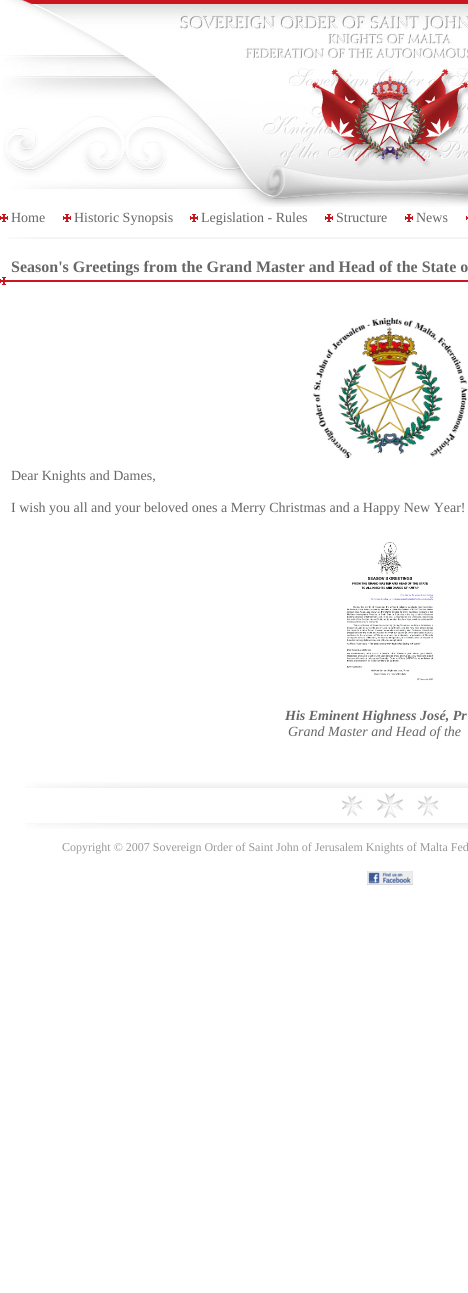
#include <cairo/cairo.h>
#include <math.h>
#include <stddef.h>


static void draw_image(cairo_t *cr, const char *path, double x, double y, double w, double h) {
  cairo_surface_t *image = cairo_image_surface_create_from_png(path);
  cairo_save(cr);
  cairo_set_source_surface(cr, image, x, y);
  cairo_rectangle(cr, x, y, w, h);
  cairo_fill(cr);
  cairo_restore(cr);
  cairo_surface_destroy(image);
}

static void draw(cairo_t *cr) {
  cairo_set_source_rgb(cr, 1, 1, 1);
  cairo_paint(cr);
  draw_image(cr, "images/1.png", 3, 0, 465, 207);
  draw_image(cr, "images/2.png", 0, 214, 8, 8);
  draw_image(cr, "images/2.png", 63, 214, 8, 8);
  draw_image(cr, "images/2.png", 190, 214, 8, 8);
  draw_image(cr, "images/2.png", 325, 214, 8, 8);
  draw_image(cr, "images/2.png", 405, 214, 8, 8);
  draw_image(cr, "images/3.png", 466, 216, 2, 4);
  draw_image(cr, "images/4.png", 8, 237, 460, 2);
  cairo_set_source_rgb(cr, 202 / 255.0, 22 / 255.0, 31 / 255.0);
  cairo_rectangle(cr, 0, 280, 468, 2);
  cairo_fill(cr);
  draw_image(cr, "images/5.png", 0, 277, 6, 8);
  draw_image(cr, "images/6.png", 313, 317, 155, 142);
  draw_image(cr, "images/7.png", 347, 542, 87, 139);
  draw_image(cr, "images/8.png", 25, 782, 443, 47);
  draw_image(cr, "images/9.png", 367, 871, 46, 14);
  cairo_select_font_face(cr, "Liberation Serif", CAIRO_FONT_SLANT_NORMAL, CAIRO_FONT_WEIGHT_NORMAL);
  cairo_set_font_size(cr, 14);
  cairo_set_source_rgb(cr, 102 / 255.0, 102 / 255.0, 102 / 255.0);
  cairo_move_to(cr, 11, 222);
  cairo_show_text(cr, "Home");
  cairo_move_to(cr, 74, 222);
  cairo_show_text(cr, "Historic Synopsis");
  cairo_move_to(cr, 201, 222);
  cairo_show_text(cr, "Legislation - Rules");
  cairo_move_to(cr, 336, 222);
  cairo_show_text(cr, "Structure");
  cairo_move_to(cr, 416, 222);
  cairo_show_text(cr, "News");
  cairo_select_font_face(cr, "Liberation Serif", CAIRO_FONT_SLANT_NORMAL, CAIRO_FONT_WEIGHT_BOLD);
  cairo_set_font_size(cr, 16);
  cairo_move_to(cr, 11, 272);
  cairo_show_text(cr, "Season's Greetings from the Grand Master and Head of the State o");
  cairo_select_font_face(cr, "Liberation Serif", CAIRO_FONT_SLANT_NORMAL, CAIRO_FONT_WEIGHT_NORMAL);
  cairo_set_font_size(cr, 14);
  cairo_move_to(cr, 11, 480);
  cairo_show_text(cr, "Dear Knights and Dames,");
  cairo_move_to(cr, 11, 512);
  cairo_show_text(cr, "I wish you all and your beloved ones a Merry Christmas and a Happy New Year!");
  cairo_select_font_face(cr, "Liberation Serif", CAIRO_FONT_SLANT_ITALIC, CAIRO_FONT_WEIGHT_BOLD);
  cairo_move_to(cr, 285, 720);
  cairo_show_text(cr, "His Eminent Highness José, Pr");
  cairo_select_font_face(cr, "Liberation Serif", CAIRO_FONT_SLANT_ITALIC, CAIRO_FONT_WEIGHT_NORMAL);
  cairo_move_to(cr, 288, 736);
  cairo_show_text(cr, "Grand Master and Head of the");
  cairo_select_font_face(cr, "Liberation Serif", CAIRO_FONT_SLANT_NORMAL, CAIRO_FONT_WEIGHT_NORMAL);
  cairo_set_font_size(cr, 12);
  cairo_set_source_rgb(cr, 153 / 255.0, 153 / 255.0, 153 / 255.0);
  cairo_move_to(cr, 62, 851);
  cairo_show_text(cr, "Copyright © 2007 Sovereign Order of Saint John of Jerusalem Knights of Malta Fed");
}

int main(void) {
  cairo_surface_t *surface = cairo_image_surface_create(CAIRO_FORMAT_RGB24, 468, 1293);
  cairo_t *cr = cairo_create(surface);
  cairo_font_options_t *options = cairo_font_options_create();
  cairo_font_options_set_hint_metrics(options, CAIRO_HINT_METRICS_OFF);
  cairo_font_options_set_hint_style(options, CAIRO_HINT_STYLE_NONE);
  cairo_set_font_options(cr, options);
  cairo_set_miter_limit(cr, 4);
  draw(cr);
  cairo_surface_write_to_png(surface, "out.png");
  cairo_font_options_destroy(options);
  cairo_destroy(cr);
  cairo_surface_destroy(surface);
  return 0;
}
